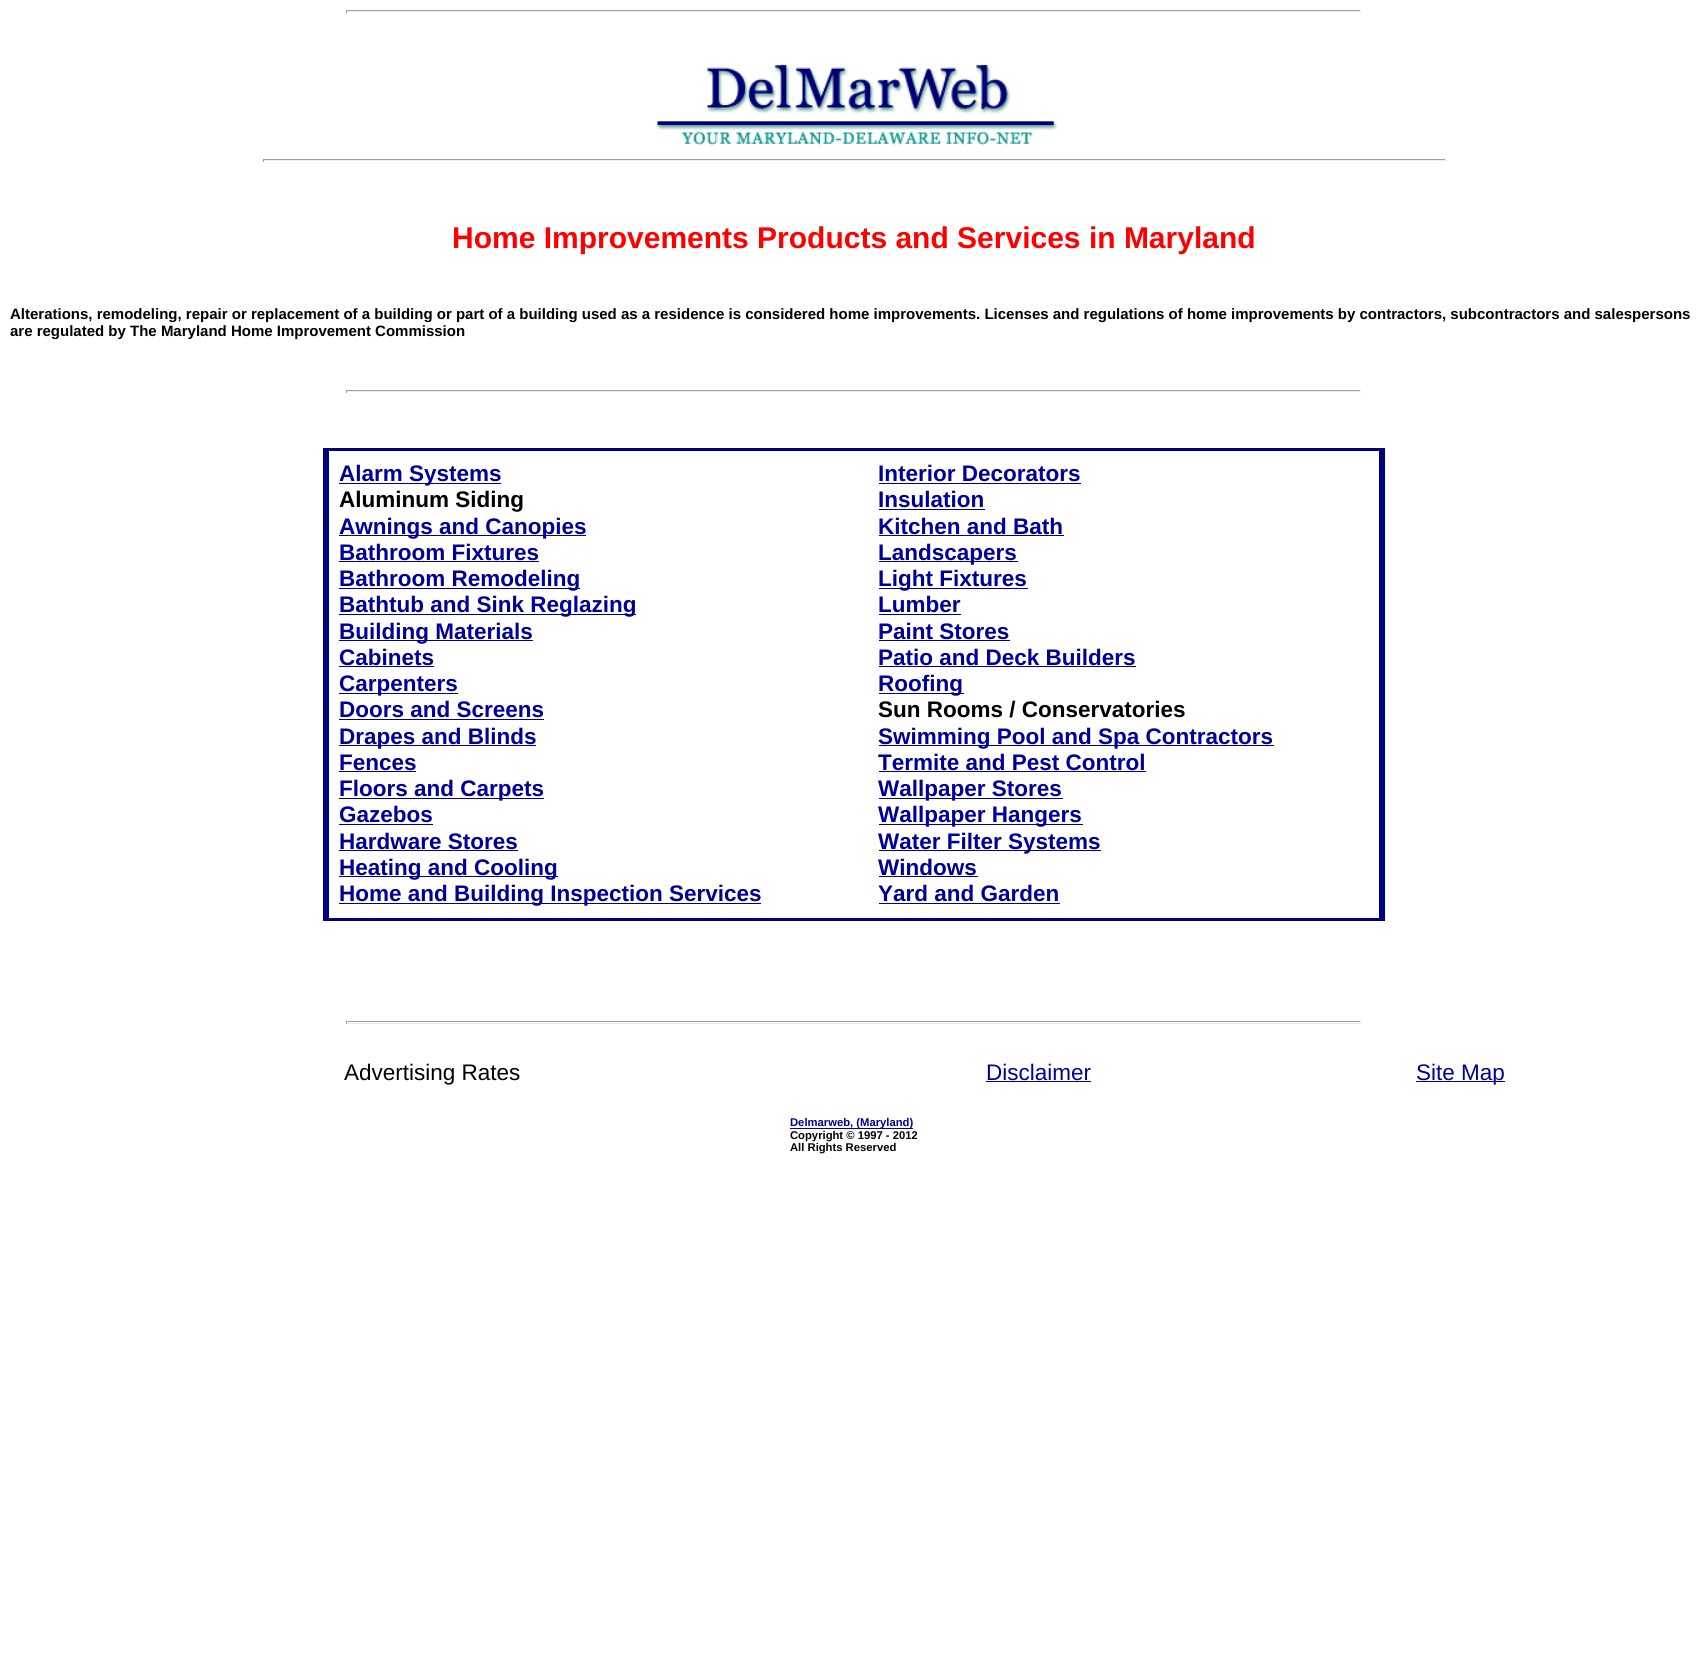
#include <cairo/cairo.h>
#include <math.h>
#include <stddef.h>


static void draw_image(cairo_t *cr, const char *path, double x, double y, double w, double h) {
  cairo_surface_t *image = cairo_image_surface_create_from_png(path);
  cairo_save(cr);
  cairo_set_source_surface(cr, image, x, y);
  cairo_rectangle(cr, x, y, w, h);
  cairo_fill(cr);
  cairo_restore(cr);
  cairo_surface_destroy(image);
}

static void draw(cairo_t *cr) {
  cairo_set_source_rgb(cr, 1, 1, 1);
  cairo_paint(cr);
  cairo_set_source_rgb(cr, 159 / 255.0, 159 / 255.0, 159 / 255.0);
  cairo_rectangle(cr, 346, 10, 1015, 1);
  cairo_fill(cr);
  cairo_set_source_rgb(cr, 238 / 255.0, 238 / 255.0, 238 / 255.0);
  cairo_rectangle(cr, 1360, 10, 1, 3);
  cairo_fill(cr);
  cairo_rectangle(cr, 346, 11, 1015, 1);
  cairo_fill(cr);
  cairo_set_source_rgb(cr, 159 / 255.0, 159 / 255.0, 159 / 255.0);
  cairo_rectangle(cr, 346, 10, 1, 3);
  cairo_fill(cr);
  draw_image(cr, "images/1.png", 656, 64, 402, 82);
  cairo_rectangle(cr, 263, 159, 1183, 1);
  cairo_fill(cr);
  cairo_set_source_rgb(cr, 238 / 255.0, 238 / 255.0, 238 / 255.0);
  cairo_rectangle(cr, 1445, 159, 1, 3);
  cairo_fill(cr);
  cairo_rectangle(cr, 263, 160, 1183, 1);
  cairo_fill(cr);
  cairo_set_source_rgb(cr, 159 / 255.0, 159 / 255.0, 159 / 255.0);
  cairo_rectangle(cr, 263, 159, 1, 3);
  cairo_fill(cr);
  cairo_rectangle(cr, 346, 390, 1015, 1);
  cairo_fill(cr);
  cairo_set_source_rgb(cr, 238 / 255.0, 238 / 255.0, 238 / 255.0);
  cairo_rectangle(cr, 1360, 390, 1, 3);
  cairo_fill(cr);
  cairo_rectangle(cr, 346, 391, 1015, 1);
  cairo_fill(cr);
  cairo_set_source_rgb(cr, 159 / 255.0, 159 / 255.0, 159 / 255.0);
  cairo_rectangle(cr, 346, 390, 1, 3);
  cairo_fill(cr);
  cairo_set_source_rgb(cr, 0, 0, 128 / 255.0);
  cairo_rectangle(cr, 323, 448, 1062, 473);
  cairo_fill(cr);
  cairo_set_source_rgb(cr, 1, 1, 1);
  cairo_rectangle(cr, 329, 451, 1050, 467);
  cairo_fill(cr);
  cairo_set_source_rgb(cr, 0, 0, 153 / 255.0);
  cairo_rectangle(cr, 339, 483, 162, 1);
  cairo_fill(cr);
  cairo_rectangle(cr, 339, 535, 247, 1);
  cairo_fill(cr);
  cairo_rectangle(cr, 339, 561, 200, 1);
  cairo_fill(cr);
  cairo_rectangle(cr, 339, 588, 241, 1);
  cairo_fill(cr);
  cairo_rectangle(cr, 339, 614, 297, 1);
  cairo_fill(cr);
  cairo_rectangle(cr, 339, 640, 194, 1);
  cairo_fill(cr);
  cairo_rectangle(cr, 339, 666, 95, 1);
  cairo_fill(cr);
  cairo_rectangle(cr, 339, 693, 119, 1);
  cairo_fill(cr);
  cairo_rectangle(cr, 339, 719, 205, 1);
  cairo_fill(cr);
  cairo_rectangle(cr, 339, 745, 197, 1);
  cairo_fill(cr);
  cairo_rectangle(cr, 339, 771, 77, 1);
  cairo_fill(cr);
  cairo_rectangle(cr, 339, 798, 205, 1);
  cairo_fill(cr);
  cairo_rectangle(cr, 339, 824, 94, 1);
  cairo_fill(cr);
  cairo_rectangle(cr, 339, 850, 179, 1);
  cairo_fill(cr);
  cairo_rectangle(cr, 339, 876, 219, 1);
  cairo_fill(cr);
  cairo_rectangle(cr, 339, 903, 422, 1);
  cairo_fill(cr);
  cairo_rectangle(cr, 879, 483, 202, 1);
  cairo_fill(cr);
  cairo_rectangle(cr, 879, 509, 106, 1);
  cairo_fill(cr);
  cairo_rectangle(cr, 879, 535, 185, 1);
  cairo_fill(cr);
  cairo_rectangle(cr, 879, 561, 139, 1);
  cairo_fill(cr);
  cairo_rectangle(cr, 879, 588, 149, 1);
  cairo_fill(cr);
  cairo_rectangle(cr, 879, 614, 82, 1);
  cairo_fill(cr);
  cairo_rectangle(cr, 879, 640, 131, 1);
  cairo_fill(cr);
  cairo_rectangle(cr, 879, 666, 257, 1);
  cairo_fill(cr);
  cairo_rectangle(cr, 879, 693, 85, 1);
  cairo_fill(cr);
  cairo_rectangle(cr, 879, 745, 395, 1);
  cairo_fill(cr);
  cairo_rectangle(cr, 879, 771, 267, 1);
  cairo_fill(cr);
  cairo_rectangle(cr, 879, 798, 184, 1);
  cairo_fill(cr);
  cairo_rectangle(cr, 879, 824, 204, 1);
  cairo_fill(cr);
  cairo_rectangle(cr, 879, 850, 222, 1);
  cairo_fill(cr);
  cairo_rectangle(cr, 879, 876, 99, 1);
  cairo_fill(cr);
  cairo_rectangle(cr, 879, 903, 181, 1);
  cairo_fill(cr);
  cairo_set_source_rgb(cr, 159 / 255.0, 159 / 255.0, 159 / 255.0);
  cairo_rectangle(cr, 346, 1021, 1015, 1);
  cairo_fill(cr);
  cairo_set_source_rgb(cr, 238 / 255.0, 238 / 255.0, 238 / 255.0);
  cairo_rectangle(cr, 1360, 1021, 1, 3);
  cairo_fill(cr);
  cairo_rectangle(cr, 346, 1023, 1015, 1);
  cairo_fill(cr);
  cairo_set_source_rgb(cr, 159 / 255.0, 159 / 255.0, 159 / 255.0);
  cairo_rectangle(cr, 346, 1021, 1, 3);
  cairo_fill(cr);
  cairo_set_source_rgb(cr, 0, 0, 153 / 255.0);
  cairo_rectangle(cr, 986, 1081, 105, 1);
  cairo_fill(cr);
  cairo_rectangle(cr, 1416, 1081, 89, 1);
  cairo_fill(cr);
  cairo_rectangle(cr, 790, 1128, 123, 1);
  cairo_fill(cr);
  cairo_select_font_face(cr, "Liberation Sans", CAIRO_FONT_SLANT_NORMAL, CAIRO_FONT_WEIGHT_BOLD);
  cairo_set_font_size(cr, 30);
  cairo_set_source_rgb(cr, 1, 0, 0);
  cairo_move_to(cr, 452, 248);
  cairo_show_text(cr, "Home Improvements Products and Services in Maryland");
  cairo_set_font_size(cr, 15);
  cairo_set_source_rgb(cr, 0, 0, 0);
  cairo_move_to(cr, 10, 319);
  cairo_show_text(cr, "Alterations, remodeling, repair or replacement of a building or part of a building used as a residence is considered home improvements. Licenses and regulations of home improvements by contractors, subcontractors and salespersons");
  cairo_move_to(cr, 10, 336);
  cairo_show_text(cr, "are regulated by The Maryland Home Improvement Commission");
  cairo_set_font_size(cr, 22.5);
  cairo_set_source_rgb(cr, 0, 0, 153 / 255.0);
  cairo_move_to(cr, 339, 481);
  cairo_show_text(cr, "Alarm Systems");
  cairo_set_source_rgb(cr, 0, 0, 0);
  cairo_move_to(cr, 339, 507);
  cairo_show_text(cr, "Aluminum Siding");
  cairo_set_source_rgb(cr, 0, 0, 153 / 255.0);
  cairo_move_to(cr, 339, 534);
  cairo_show_text(cr, "Awnings and Canopies");
  cairo_move_to(cr, 339, 560);
  cairo_show_text(cr, "Bathroom Fixtures");
  cairo_move_to(cr, 339, 586);
  cairo_show_text(cr, "Bathroom Remodeling");
  cairo_move_to(cr, 339, 612);
  cairo_show_text(cr, "Bathtub and Sink Reglazing");
  cairo_move_to(cr, 339, 639);
  cairo_show_text(cr, "Building Materials");
  cairo_move_to(cr, 339, 665);
  cairo_show_text(cr, "Cabinets");
  cairo_move_to(cr, 339, 691);
  cairo_show_text(cr, "Carpenters");
  cairo_move_to(cr, 339, 717);
  cairo_show_text(cr, "Doors and Screens");
  cairo_move_to(cr, 339, 744);
  cairo_show_text(cr, "Drapes and Blinds");
  cairo_move_to(cr, 339, 770);
  cairo_show_text(cr, "Fences");
  cairo_move_to(cr, 339, 796);
  cairo_show_text(cr, "Floors and Carpets");
  cairo_move_to(cr, 339, 822);
  cairo_show_text(cr, "Gazebos");
  cairo_move_to(cr, 339, 849);
  cairo_show_text(cr, "Hardware Stores");
  cairo_move_to(cr, 339, 875);
  cairo_show_text(cr, "Heating and Cooling");
  cairo_move_to(cr, 339, 901);
  cairo_show_text(cr, "Home and Building Inspection Services");
  cairo_move_to(cr, 878, 481);
  cairo_show_text(cr, "Interior Decorators");
  cairo_move_to(cr, 878, 507);
  cairo_show_text(cr, "Insulation");
  cairo_move_to(cr, 878, 534);
  cairo_show_text(cr, "Kitchen and Bath");
  cairo_move_to(cr, 878, 560);
  cairo_show_text(cr, "Landscapers");
  cairo_move_to(cr, 878, 586);
  cairo_show_text(cr, "Light Fixtures");
  cairo_move_to(cr, 878, 612);
  cairo_show_text(cr, "Lumber");
  cairo_move_to(cr, 878, 639);
  cairo_show_text(cr, "Paint Stores");
  cairo_move_to(cr, 878, 665);
  cairo_show_text(cr, "Patio and Deck Builders");
  cairo_move_to(cr, 878, 691);
  cairo_show_text(cr, "Roofing");
  cairo_set_source_rgb(cr, 0, 0, 0);
  cairo_move_to(cr, 878, 717);
  cairo_show_text(cr, "Sun Rooms / Conservatories");
  cairo_set_source_rgb(cr, 0, 0, 153 / 255.0);
  cairo_move_to(cr, 878, 744);
  cairo_show_text(cr, "Swimming Pool and Spa Contractors");
  cairo_move_to(cr, 878, 770);
  cairo_show_text(cr, "Termite and Pest Control");
  cairo_move_to(cr, 878, 796);
  cairo_show_text(cr, "Wallpaper Stores");
  cairo_move_to(cr, 878, 822);
  cairo_show_text(cr, "Wallpaper Hangers");
  cairo_move_to(cr, 878, 849);
  cairo_show_text(cr, "Water Filter Systems");
  cairo_move_to(cr, 878, 875);
  cairo_show_text(cr, "Windows");
  cairo_move_to(cr, 878, 901);
  cairo_show_text(cr, "Yard and Garden");
  cairo_select_font_face(cr, "Liberation Sans", CAIRO_FONT_SLANT_NORMAL, CAIRO_FONT_WEIGHT_NORMAL);
  cairo_set_source_rgb(cr, 0, 0, 0);
  cairo_move_to(cr, 344, 1080);
  cairo_show_text(cr, "Advertising Rates");
  cairo_set_source_rgb(cr, 0, 0, 153 / 255.0);
  cairo_move_to(cr, 986, 1080);
  cairo_show_text(cr, "Disclaimer");
  cairo_move_to(cr, 1416, 1080);
  cairo_show_text(cr, "Site Map");
  cairo_select_font_face(cr, "Liberation Sans", CAIRO_FONT_SLANT_NORMAL, CAIRO_FONT_WEIGHT_BOLD);
  cairo_set_font_size(cr, 11.25);
  cairo_move_to(cr, 790, 1126);
  cairo_show_text(cr, "Delmarweb, (Maryland)");
  cairo_set_source_rgb(cr, 0, 0, 0);
  cairo_move_to(cr, 790, 1139);
  cairo_show_text(cr, "Copyright © 1997 - 2012");
  cairo_move_to(cr, 790, 1151);
  cairo_show_text(cr, "All Rights Reserved");
}

int main(void) {
  cairo_surface_t *surface = cairo_image_surface_create(CAIRO_FORMAT_RGB24, 1707, 1662);
  cairo_t *cr = cairo_create(surface);
  cairo_font_options_t *options = cairo_font_options_create();
  cairo_font_options_set_hint_metrics(options, CAIRO_HINT_METRICS_OFF);
  cairo_font_options_set_hint_style(options, CAIRO_HINT_STYLE_NONE);
  cairo_set_font_options(cr, options);
  cairo_set_miter_limit(cr, 4);
  draw(cr);
  cairo_surface_write_to_png(surface, "out.png");
  cairo_font_options_destroy(options);
  cairo_destroy(cr);
  cairo_surface_destroy(surface);
  return 0;
}
